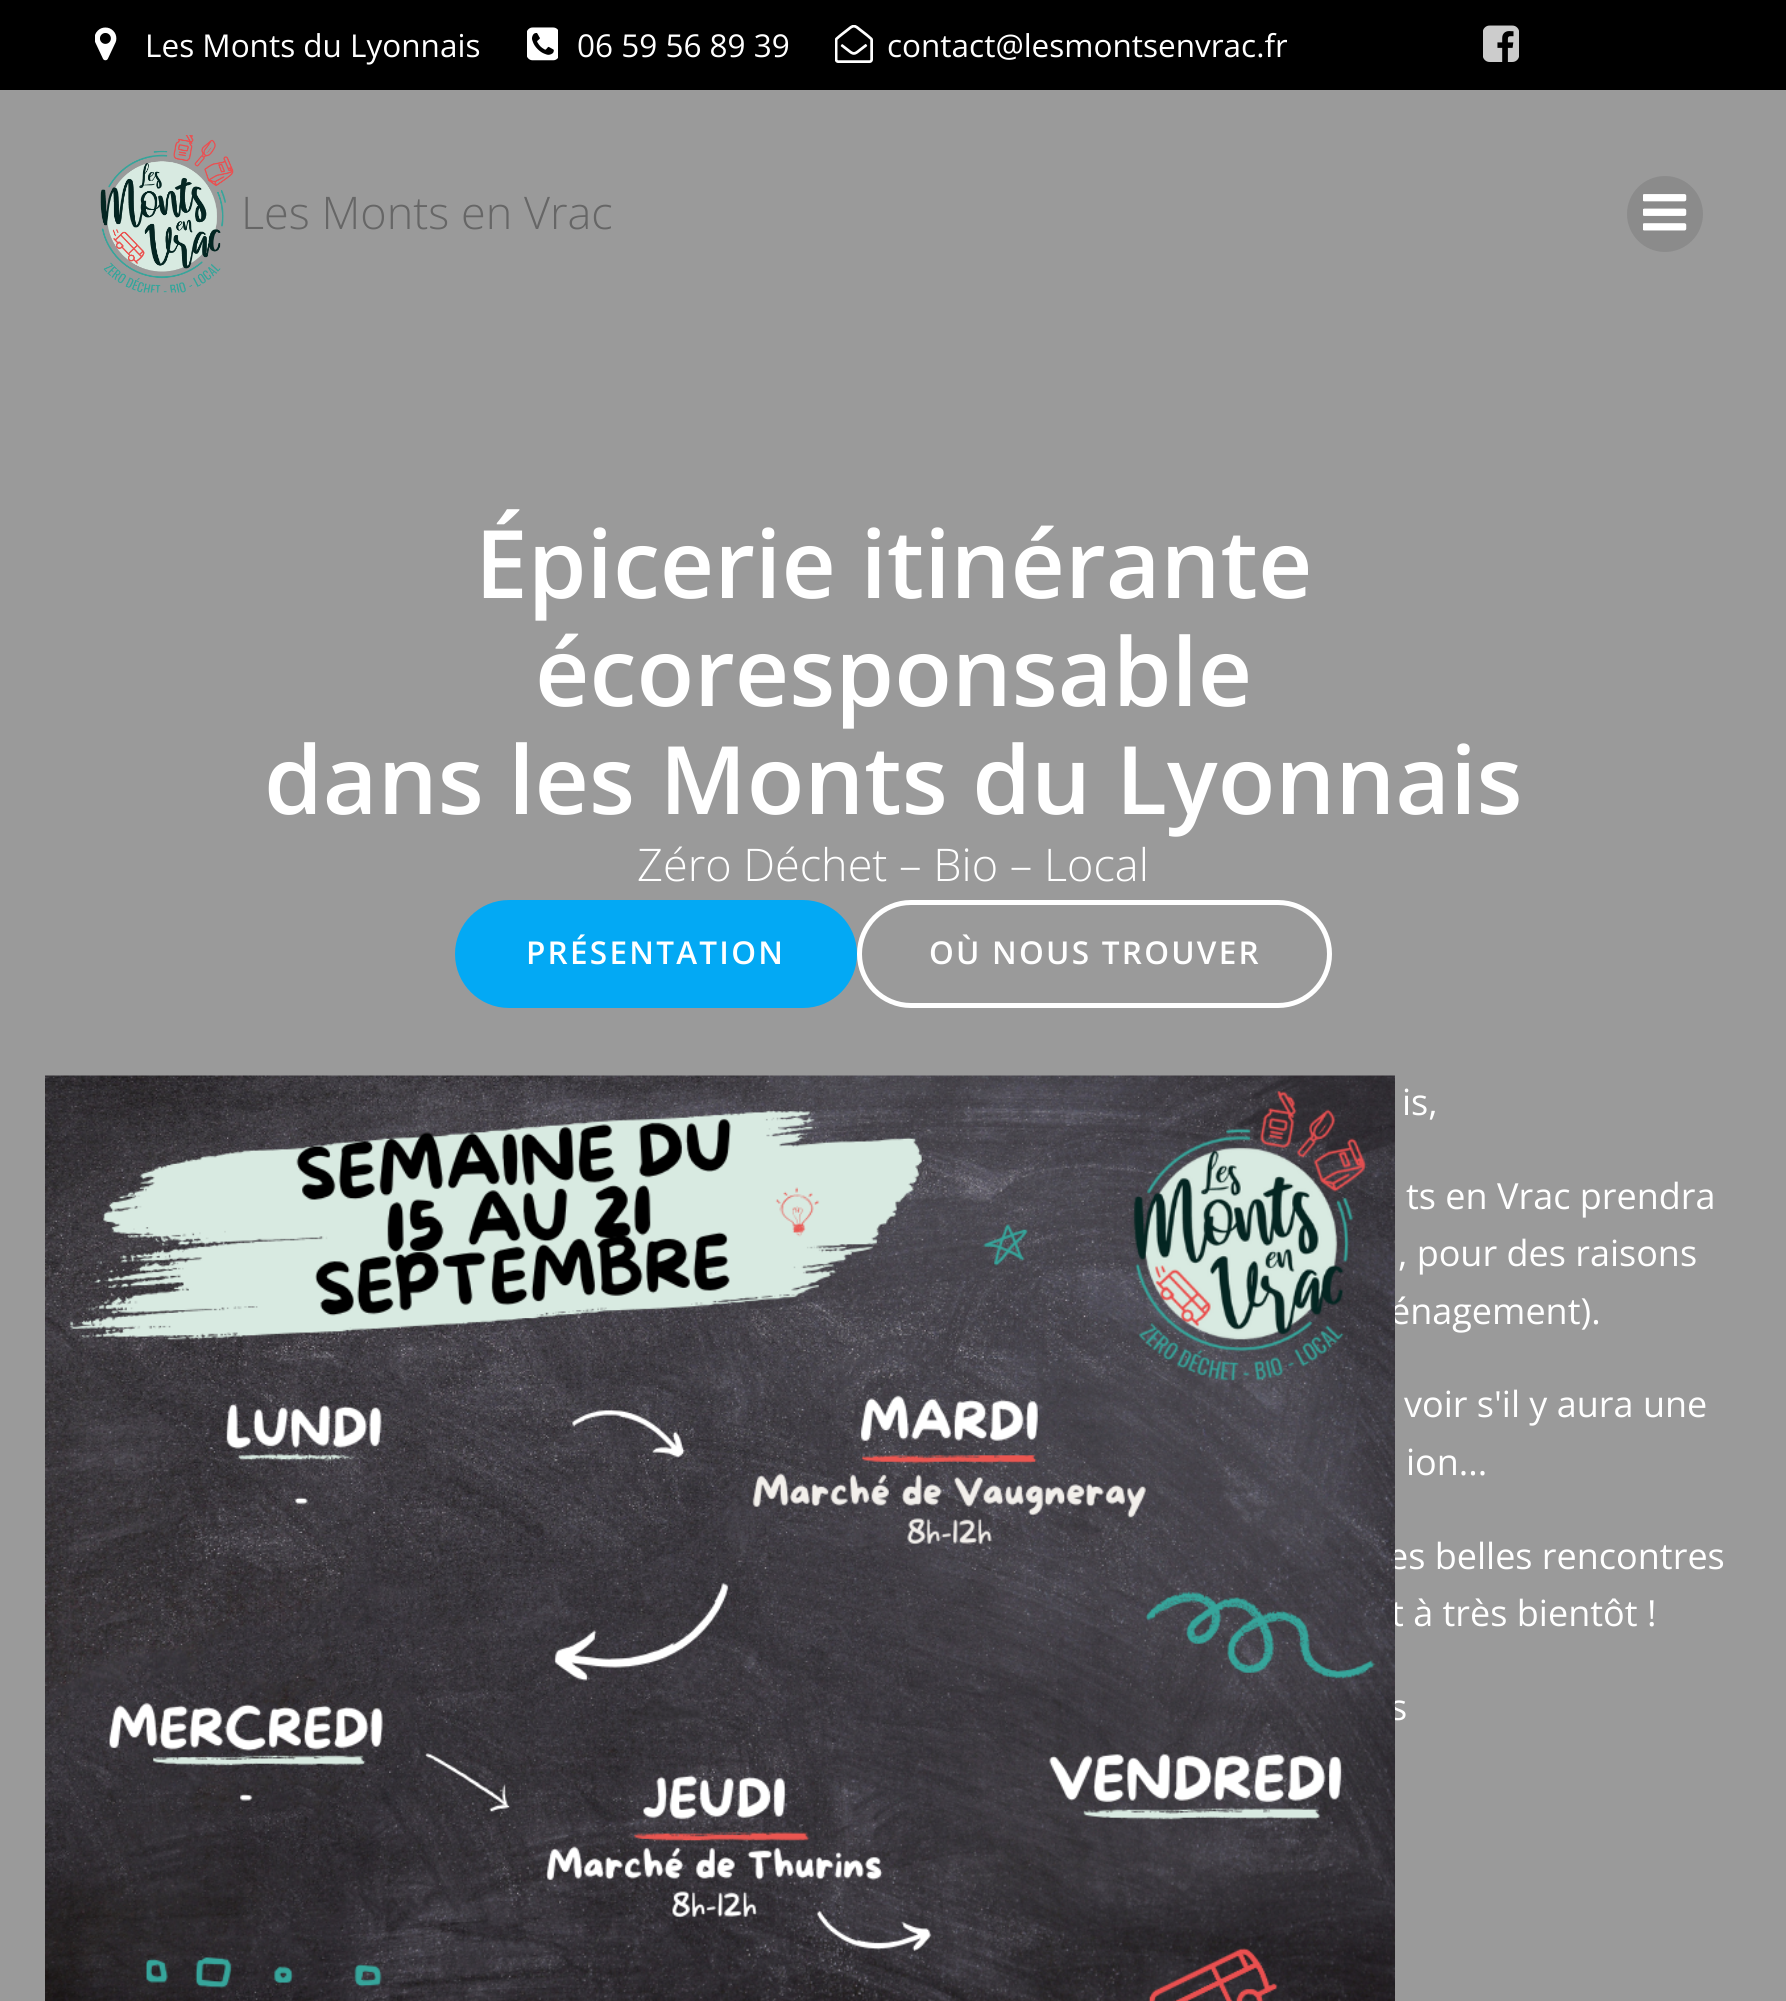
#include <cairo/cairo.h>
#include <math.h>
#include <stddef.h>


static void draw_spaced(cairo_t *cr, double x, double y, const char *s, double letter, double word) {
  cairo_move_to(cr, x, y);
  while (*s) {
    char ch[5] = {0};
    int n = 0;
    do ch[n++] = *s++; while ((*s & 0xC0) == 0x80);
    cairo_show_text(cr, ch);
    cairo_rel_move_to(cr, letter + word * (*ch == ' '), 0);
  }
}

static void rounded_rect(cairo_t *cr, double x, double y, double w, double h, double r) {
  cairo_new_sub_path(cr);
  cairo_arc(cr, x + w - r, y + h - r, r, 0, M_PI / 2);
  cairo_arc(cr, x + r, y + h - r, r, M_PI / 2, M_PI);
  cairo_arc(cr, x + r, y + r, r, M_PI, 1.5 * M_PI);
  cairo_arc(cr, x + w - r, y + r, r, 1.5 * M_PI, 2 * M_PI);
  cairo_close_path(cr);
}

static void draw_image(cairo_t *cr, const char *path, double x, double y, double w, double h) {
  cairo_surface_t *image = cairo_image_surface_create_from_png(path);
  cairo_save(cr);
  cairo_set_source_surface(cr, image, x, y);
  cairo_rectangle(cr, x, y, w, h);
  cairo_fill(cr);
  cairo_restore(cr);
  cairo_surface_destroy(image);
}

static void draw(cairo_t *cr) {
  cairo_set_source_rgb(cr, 154 / 255.0, 154 / 255.0, 154 / 255.0);
  cairo_paint(cr);
  cairo_set_source_rgb(cr, 0, 0, 0);
  cairo_rectangle(cr, 0, 0, 1786, 90);
  cairo_fill(cr);
  draw_image(cr, "images/1.png", 95, 27, 22, 34);
  draw_image(cr, "images/2.png", 527, 27, 31, 34);
  draw_image(cr, "images/3.png", 835, 25, 38, 38);
  draw_image(cr, "images/4.png", 1483, 25, 36, 37);
  draw_image(cr, "images/5.png", 100, 135, 134, 158);
  cairo_set_source_rgb(cr, 139 / 255.0, 139 / 255.0, 139 / 255.0);
  cairo_arc(cr, 1665, 214, 38, 0, 2 * M_PI);
  cairo_fill(cr);
  draw_image(cr, "images/6.png", 1643, 194, 44, 37);
  cairo_set_source_rgb(cr, 3 / 255.0, 169 / 255.0, 244 / 255.0);
  rounded_rect(cr, 457.5, 902.5, 397, 103, 51.5);
  cairo_fill_preserve(cr);
  cairo_set_line_width(cr, 5);
  cairo_stroke(cr);
  rounded_rect(cr, 859.5, 902.5, 470, 103, 51.5);
  cairo_set_source_rgb(cr, 1, 1, 1);
  cairo_stroke(cr);
  cairo_select_font_face(cr, "Open Sans", CAIRO_FONT_SLANT_NORMAL, CAIRO_FONT_WEIGHT_NORMAL);
  cairo_set_font_size(cr, 31.5);
  cairo_move_to(cr, 145, 57);
  cairo_show_text(cr, "Les Monts du Lyonnais");
  cairo_move_to(cr, 577, 57);
  cairo_show_text(cr, "06 59 56 89 39");
  cairo_save(cr);
  cairo_rectangle(cr, 887, 25, 400, 43);
  cairo_clip(cr);
  cairo_move_to(cr, 887, 57);
  cairo_show_text(cr, "contact@lesmontsenvrac.fr");
  cairo_restore(cr);
  cairo_select_font_face(cr, "Open Sans Light", CAIRO_FONT_SLANT_NORMAL, CAIRO_FONT_WEIGHT_NORMAL);
  cairo_set_font_size(cr, 45);
  cairo_set_source_rgb(cr, 102 / 255.0, 102 / 255.0, 102 / 255.0);
  cairo_move_to(cr, 241, 229);
  cairo_show_text(cr, "Les Monts en Vrac");
  cairo_select_font_face(cr, "Open Sans SemiBold", CAIRO_FONT_SLANT_NORMAL, CAIRO_FONT_WEIGHT_NORMAL);
  cairo_set_font_size(cr, 94.5);
  cairo_set_source_rgb(cr, 1, 1, 1);
  cairo_move_to(cr, 475, 598);
  cairo_show_text(cr, "Épicerie itinérante");
  cairo_move_to(cr, 535, 706);
  cairo_show_text(cr, "écoresponsable");
  cairo_move_to(cr, 264, 814);
  cairo_show_text(cr, "dans les Monts du Lyonnais");
  cairo_select_font_face(cr, "Open Sans Light", CAIRO_FONT_SLANT_NORMAL, CAIRO_FONT_WEIGHT_NORMAL);
  cairo_set_font_size(cr, 45);
  cairo_move_to(cr, 637, 881);
  cairo_show_text(cr, "Zéro Déchet – Bio – Local");
  cairo_select_font_face(cr, "Open Sans SemiBold", CAIRO_FONT_SLANT_NORMAL, CAIRO_FONT_WEIGHT_NORMAL);
  cairo_set_font_size(cr, 31.5);
  draw_spaced(cr, 526, 964, "PRÉSENTATION", 2.25, 0);
  draw_spaced(cr, 929, 964, "OÙ NOUS TROUVER", 2.25, 0);
  cairo_select_font_face(cr, "Open Sans", CAIRO_FONT_SLANT_NORMAL, CAIRO_FONT_WEIGHT_NORMAL);
  cairo_set_font_size(cr, 36);
  cairo_move_to(cr, 1402, 1115);
  cairo_show_text(cr, "is,");
  cairo_move_to(cr, 1406, 1209);
  cairo_show_text(cr, "ts en Vrac prendra");
  cairo_move_to(cr, 1398, 1266);
  cairo_show_text(cr, ", pour des raisons");
  cairo_move_to(cr, 1390, 1324);
  cairo_show_text(cr, "énagement).");
  cairo_move_to(cr, 1404, 1417);
  cairo_show_text(cr, "voir s'il y aura une");
  cairo_move_to(cr, 1406, 1475);
  cairo_show_text(cr, "ion...");
  cairo_move_to(cr, 1388, 1569);
  cairo_show_text(cr, "es belles rencontres");
  cairo_move_to(cr, 1391, 1626);
  cairo_show_text(cr, "t à très bientôt !");
  cairo_move_to(cr, 1390, 1720);
  cairo_show_text(cr, "s");
  draw_image(cr, "images/7.png", 45, 1075, 1350, 926);
}

int main(void) {
  cairo_surface_t *surface = cairo_image_surface_create(CAIRO_FORMAT_RGB24, 1786, 2001);
  cairo_t *cr = cairo_create(surface);
  cairo_font_options_t *options = cairo_font_options_create();
  cairo_font_options_set_hint_metrics(options, CAIRO_HINT_METRICS_OFF);
  cairo_font_options_set_hint_style(options, CAIRO_HINT_STYLE_NONE);
  cairo_set_font_options(cr, options);
  cairo_set_miter_limit(cr, 4);
  draw(cr);
  cairo_surface_write_to_png(surface, "out.png");
  cairo_font_options_destroy(options);
  cairo_destroy(cr);
  cairo_surface_destroy(surface);
  return 0;
}
